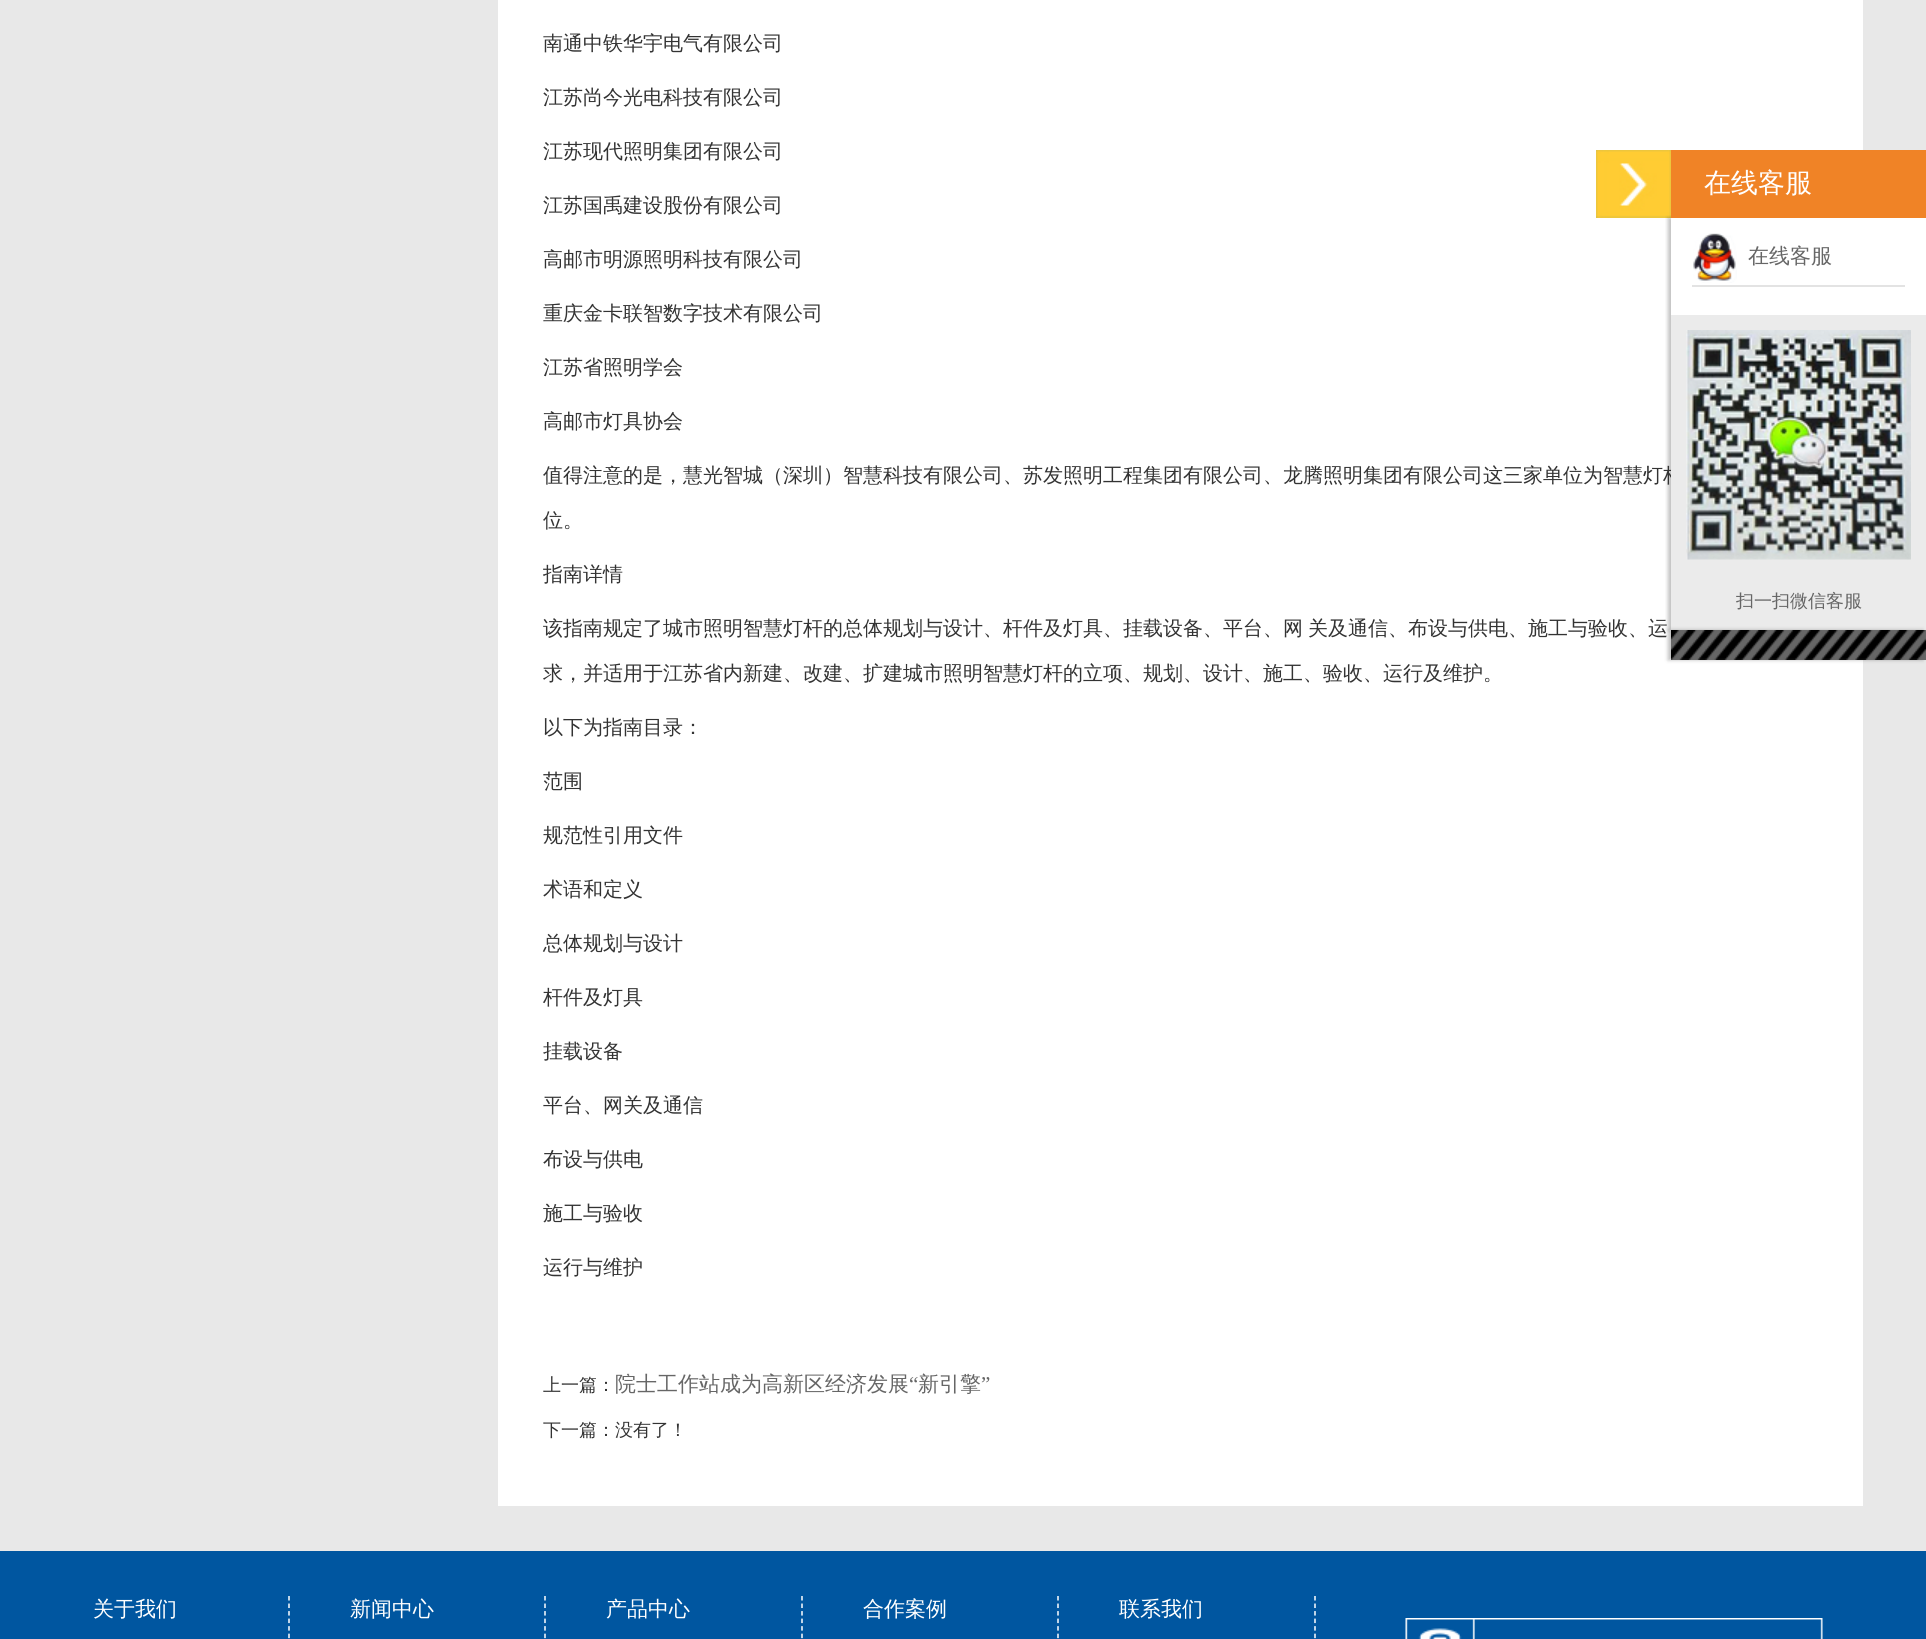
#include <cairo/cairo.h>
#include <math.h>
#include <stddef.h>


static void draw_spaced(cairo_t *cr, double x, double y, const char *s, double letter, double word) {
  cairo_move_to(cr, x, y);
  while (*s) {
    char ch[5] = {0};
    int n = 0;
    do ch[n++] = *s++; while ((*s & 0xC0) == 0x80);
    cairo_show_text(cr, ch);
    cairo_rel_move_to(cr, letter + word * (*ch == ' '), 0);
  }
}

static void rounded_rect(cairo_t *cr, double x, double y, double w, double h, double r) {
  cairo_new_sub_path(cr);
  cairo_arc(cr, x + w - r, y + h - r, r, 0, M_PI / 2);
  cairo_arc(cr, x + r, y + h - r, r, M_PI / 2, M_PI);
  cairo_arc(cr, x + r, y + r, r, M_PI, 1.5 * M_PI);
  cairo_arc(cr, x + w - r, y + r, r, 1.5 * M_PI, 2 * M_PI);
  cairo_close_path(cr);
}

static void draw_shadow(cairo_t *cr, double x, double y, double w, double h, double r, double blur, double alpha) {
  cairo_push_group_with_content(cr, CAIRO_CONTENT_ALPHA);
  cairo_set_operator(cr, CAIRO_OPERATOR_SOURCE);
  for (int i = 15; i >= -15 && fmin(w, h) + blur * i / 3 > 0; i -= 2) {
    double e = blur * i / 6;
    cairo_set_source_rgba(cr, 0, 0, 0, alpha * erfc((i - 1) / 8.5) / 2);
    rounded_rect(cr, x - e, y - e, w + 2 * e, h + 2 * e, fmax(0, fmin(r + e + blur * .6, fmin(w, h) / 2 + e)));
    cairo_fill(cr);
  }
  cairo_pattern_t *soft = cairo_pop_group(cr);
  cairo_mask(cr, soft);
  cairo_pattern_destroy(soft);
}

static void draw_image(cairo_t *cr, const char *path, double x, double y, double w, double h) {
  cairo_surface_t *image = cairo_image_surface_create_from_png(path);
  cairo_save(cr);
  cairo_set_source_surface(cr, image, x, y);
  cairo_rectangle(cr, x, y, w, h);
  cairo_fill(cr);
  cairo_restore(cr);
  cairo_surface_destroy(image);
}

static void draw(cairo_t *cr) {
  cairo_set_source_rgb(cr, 232 / 255.0, 232 / 255.0, 232 / 255.0);
  cairo_paint(cr);
  cairo_set_source_rgb(cr, 1, 1, 1);
  cairo_rectangle(cr, 498, 0, 1365, 1506);
  cairo_fill(cr);
  draw_image(cr, "images/1.png", 1596, 150, 75, 68);
  cairo_rectangle(cr, 1863, 218, 63, 97);
  cairo_fill(cr);
  cairo_save(cr);
  cairo_rectangle(cr, 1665, 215, 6, 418);
  cairo_clip(cr);
  cairo_set_source_rgb(cr, 0, 0, 0);
  draw_shadow(cr, 1668, 218, 255, 412, 0, 2, 0.25);
  cairo_restore(cr);
  cairo_set_source_rgb(cr, 240 / 255.0, 131 / 255.0, 38 / 255.0);
  cairo_rectangle(cr, 1671, 150, 255, 68);
  cairo_fill(cr);
  cairo_set_source_rgb(cr, 227 / 255.0, 227 / 255.0, 227 / 255.0);
  cairo_rectangle(cr, 1692, 285, 213, 2);
  cairo_fill(cr);
  draw_image(cr, "images/2.png", 1693, 233, 44, 50);
  cairo_set_source_rgb(cr, 0, 86 / 255.0, 160 / 255.0);
  cairo_rectangle(cr, 0, 1551, 1926, 88);
  cairo_fill(cr);
  cairo_new_path(cr);
  cairo_move_to(cr, 289, 1596);
  cairo_line_to(cr, 289, 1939.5);
  cairo_set_source_rgb(cr, 1, 1, 1);
  cairo_set_line_width(cr, 1.5);
  cairo_set_dash(cr, (double[]){4.5, 3.03}, 2, 0);
  cairo_stroke(cr);
  cairo_new_path(cr);
  cairo_move_to(cr, 545, 1596);
  cairo_line_to(cr, 545, 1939.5);
  cairo_stroke(cr);
  cairo_new_path(cr);
  cairo_move_to(cr, 802, 1596);
  cairo_line_to(cr, 802, 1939.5);
  cairo_stroke(cr);
  cairo_new_path(cr);
  cairo_move_to(cr, 1058, 1596);
  cairo_line_to(cr, 1058, 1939.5);
  cairo_stroke(cr);
  cairo_new_path(cr);
  cairo_move_to(cr, 1315, 1596);
  cairo_line_to(cr, 1315, 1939.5);
  cairo_stroke(cr);
  draw_image(cr, "images/5.png", 1405, 1618, 418, 21);
  cairo_select_font_face(cr, "WenQuanYi Zen Hei Medium", CAIRO_FONT_SLANT_NORMAL, CAIRO_FONT_WEIGHT_NORMAL);
  cairo_set_font_size(cr, 20);
  cairo_set_source_rgb(cr, 51 / 255.0, 51 / 255.0, 51 / 255.0);
  cairo_move_to(cr, 543, 50);
  cairo_show_text(cr, "南通中铁华宇电气有限公司");
  cairo_move_to(cr, 543, 104);
  cairo_show_text(cr, "江苏尚今光电科技有限公司");
  cairo_move_to(cr, 543, 158);
  cairo_show_text(cr, "江苏现代照明集团有限公司");
  cairo_move_to(cr, 543, 212);
  cairo_show_text(cr, "江苏国禹建设股份有限公司");
  cairo_move_to(cr, 543, 266);
  cairo_show_text(cr, "高邮市明源照明科技有限公司");
  cairo_move_to(cr, 543, 320);
  cairo_show_text(cr, "重庆金卡联智数字技术有限公司");
  cairo_move_to(cr, 543, 374);
  cairo_show_text(cr, "江苏省照明学会");
  cairo_move_to(cr, 543, 428);
  cairo_show_text(cr, "高邮市灯具协会");
  cairo_move_to(cr, 543, 482);
  cairo_show_text(cr, "值得注意的是，慧光智城（深圳）智慧科技有限公司、苏发照明工程集团有限公司、龙腾照明集团有限公司这三家单位为智慧灯杆");
  cairo_move_to(cr, 543, 527);
  cairo_show_text(cr, "位。");
  cairo_move_to(cr, 543, 581);
  cairo_show_text(cr, "指南详情");
  draw_spaced(cr, 543, 635, "该指南规定了城市照明智慧灯杆的总体规划与设计、杆件及灯具、挂载设备、平台、网 关及通信、布设与供电、施工与验收、运", 0, -1);
  cairo_move_to(cr, 543, 680);
  cairo_show_text(cr, "求，并适用于江苏省内新建、改建、扩建城市照明智慧灯杆的立项、规划、设计、施工、验收、运行及维护。");
  cairo_move_to(cr, 543, 734);
  cairo_show_text(cr, "以下为指南目录：");
  cairo_move_to(cr, 543, 788);
  cairo_show_text(cr, "范围");
  cairo_move_to(cr, 543, 842);
  cairo_show_text(cr, "规范性引用文件");
  cairo_move_to(cr, 543, 896);
  cairo_show_text(cr, "术语和定义");
  cairo_move_to(cr, 543, 950);
  cairo_show_text(cr, "总体规划与设计");
  cairo_move_to(cr, 543, 1004);
  cairo_show_text(cr, "杆件及灯具");
  cairo_move_to(cr, 543, 1058);
  cairo_show_text(cr, "挂载设备");
  cairo_move_to(cr, 543, 1112);
  cairo_show_text(cr, "平台、网关及通信");
  cairo_move_to(cr, 543, 1166);
  cairo_show_text(cr, "布设与供电");
  cairo_move_to(cr, 543, 1220);
  cairo_show_text(cr, "施工与验收");
  cairo_move_to(cr, 543, 1274);
  cairo_show_text(cr, "运行与维护");
  cairo_set_font_size(cr, 18);
  cairo_move_to(cr, 543, 1391);
  cairo_show_text(cr, "上一篇：");
  cairo_set_font_size(cr, 21);
  cairo_set_source_rgb(cr, 102 / 255.0, 102 / 255.0, 102 / 255.0);
  cairo_move_to(cr, 615, 1391);
  cairo_show_text(cr, "院士工作站成为高新区经济发展");
  cairo_select_font_face(cr, "Liberation Serif", CAIRO_FONT_SLANT_NORMAL, CAIRO_FONT_WEIGHT_NORMAL);
  cairo_move_to(cr, 909, 1391);
  cairo_show_text(cr, "“");
  cairo_select_font_face(cr, "WenQuanYi Zen Hei Medium", CAIRO_FONT_SLANT_NORMAL, CAIRO_FONT_WEIGHT_NORMAL);
  cairo_move_to(cr, 918, 1391);
  cairo_show_text(cr, "新引擎");
  cairo_select_font_face(cr, "Liberation Serif", CAIRO_FONT_SLANT_NORMAL, CAIRO_FONT_WEIGHT_NORMAL);
  cairo_move_to(cr, 981, 1391);
  cairo_show_text(cr, "”");
  cairo_select_font_face(cr, "WenQuanYi Zen Hei Medium", CAIRO_FONT_SLANT_NORMAL, CAIRO_FONT_WEIGHT_NORMAL);
  cairo_set_font_size(cr, 18);
  cairo_set_source_rgb(cr, 51 / 255.0, 51 / 255.0, 51 / 255.0);
  cairo_move_to(cr, 543, 1436);
  cairo_show_text(cr, "下一篇：没有了！");
  cairo_set_font_size(cr, 27);
  cairo_set_source_rgb(cr, 1, 1, 1);
  cairo_move_to(cr, 1704, 192);
  cairo_show_text(cr, "在线客服");
  cairo_set_font_size(cr, 21);
  cairo_set_source_rgb(cr, 102 / 255.0, 102 / 255.0, 102 / 255.0);
  cairo_move_to(cr, 1748, 263);
  cairo_show_text(cr, "在线客服");
  cairo_set_source_rgb(cr, 235 / 255.0, 235 / 255.0, 235 / 255.0);
  cairo_rectangle(cr, 1671, 315, 255, 315);
  cairo_fill(cr);
  draw_image(cr, "images/3.png", 1686, 330, 225, 230);
  cairo_set_font_size(cr, 18);
  cairo_set_source_rgb(cr, 102 / 255.0, 102 / 255.0, 102 / 255.0);
  cairo_move_to(cr, 1736, 607);
  cairo_show_text(cr, "扫一扫微信客服");
  cairo_set_source_rgb(cr, 0, 0, 0);
  draw_shadow(cr, 1668, 630, 255, 30, 0, 2, 0.25);
  draw_image(cr, "images/4.png", 1671, 630, 255, 30);
  cairo_set_font_size(cr, 21);
  cairo_set_source_rgb(cr, 1, 1, 1);
  cairo_move_to(cr, 93, 1616);
  cairo_show_text(cr, "关于我们");
  cairo_move_to(cr, 350, 1616);
  cairo_show_text(cr, "新闻中心");
  cairo_move_to(cr, 606, 1616);
  cairo_show_text(cr, "产品中心");
  cairo_move_to(cr, 863, 1616);
  cairo_show_text(cr, "合作案例");
  cairo_move_to(cr, 1119, 1616);
  cairo_show_text(cr, "联系我们");
}

int main(void) {
  cairo_surface_t *surface = cairo_image_surface_create(CAIRO_FORMAT_RGB24, 1926, 1639);
  cairo_t *cr = cairo_create(surface);
  cairo_font_options_t *options = cairo_font_options_create();
  cairo_font_options_set_hint_metrics(options, CAIRO_HINT_METRICS_OFF);
  cairo_font_options_set_hint_style(options, CAIRO_HINT_STYLE_NONE);
  cairo_set_font_options(cr, options);
  cairo_set_miter_limit(cr, 4);
  draw(cr);
  cairo_surface_write_to_png(surface, "out.png");
  cairo_font_options_destroy(options);
  cairo_destroy(cr);
  cairo_surface_destroy(surface);
  return 0;
}
